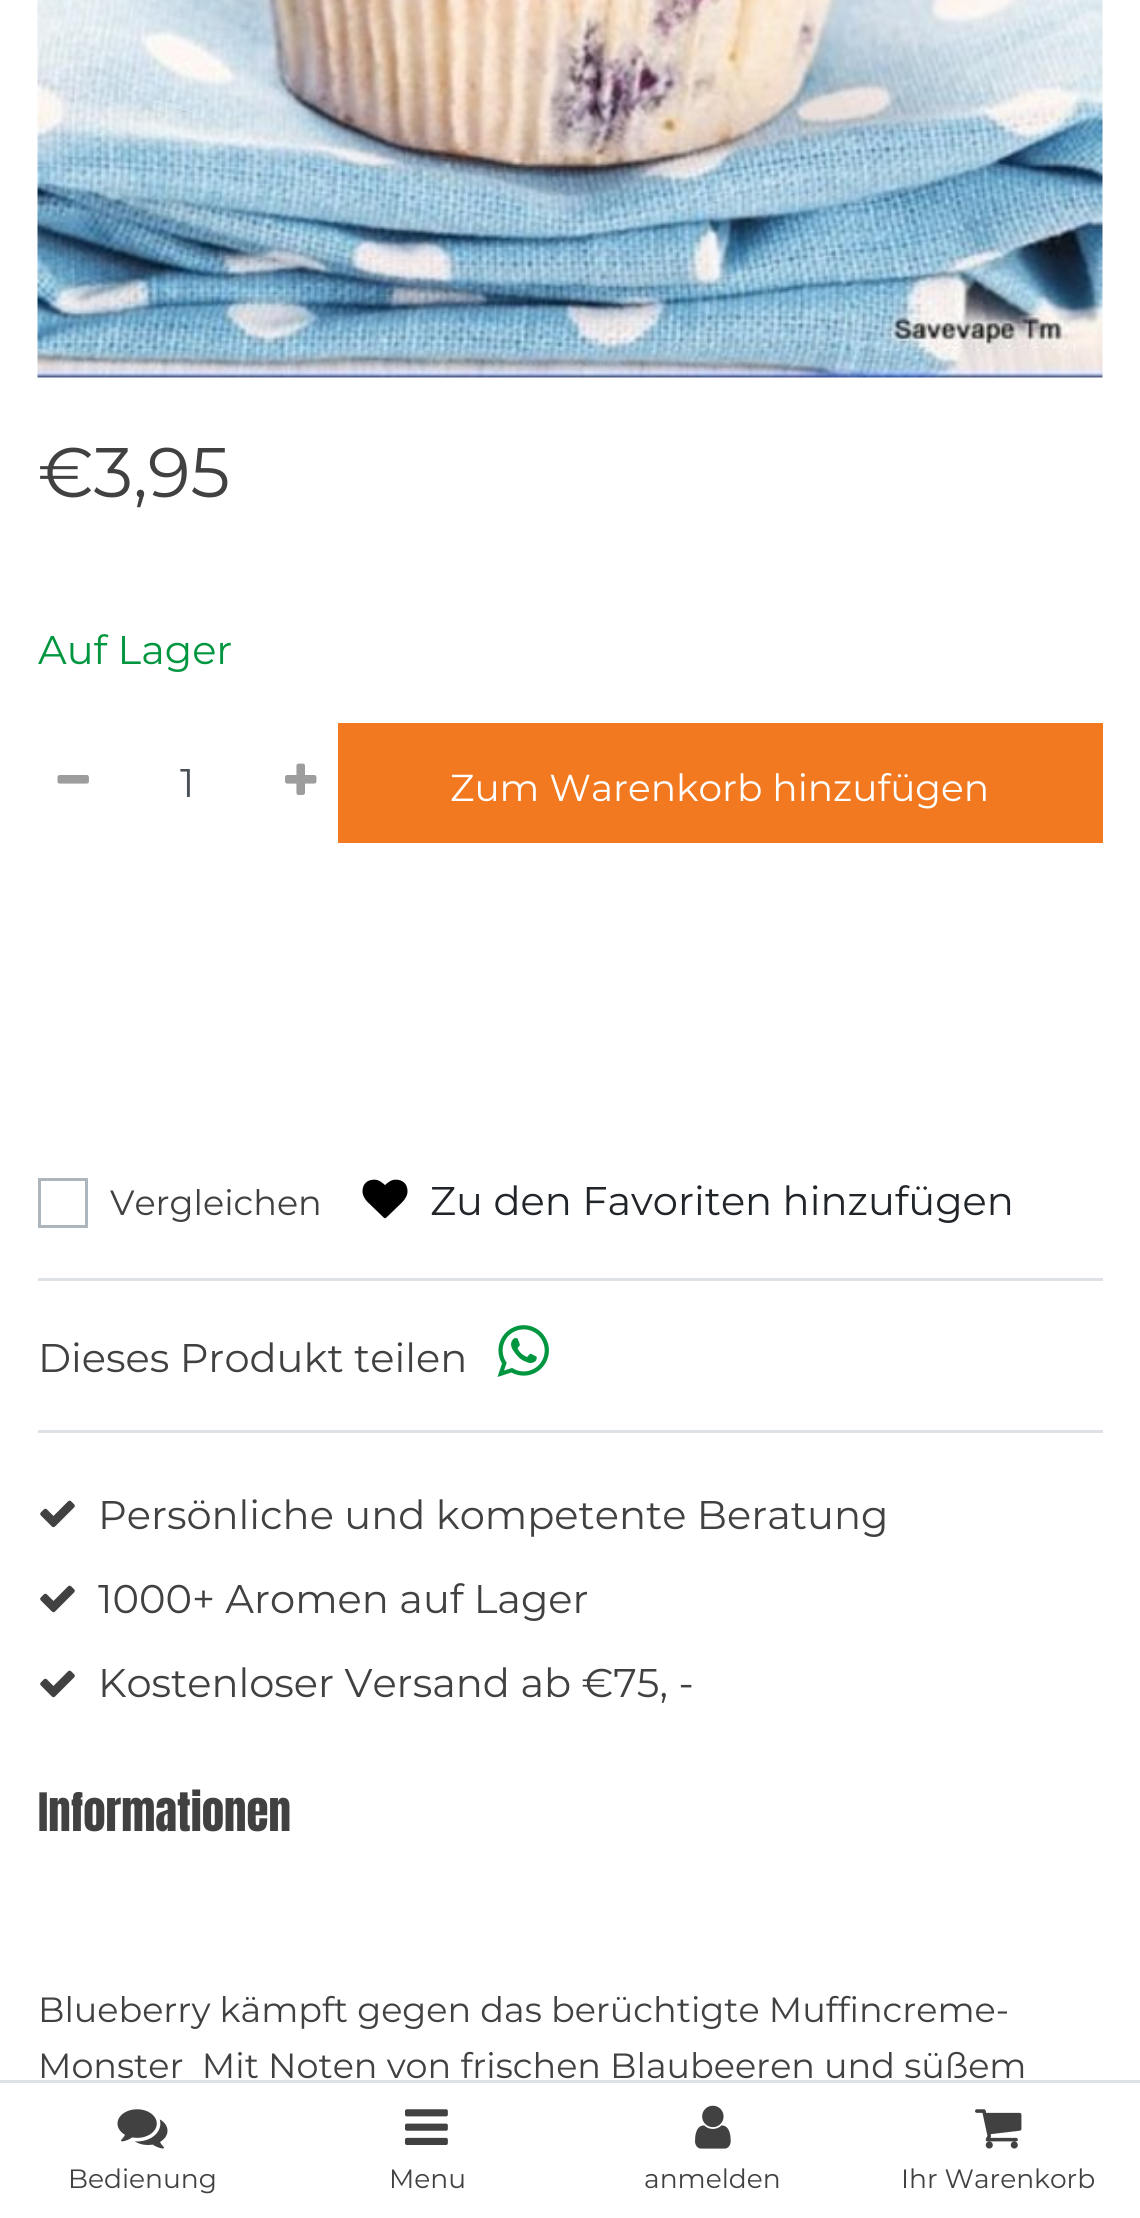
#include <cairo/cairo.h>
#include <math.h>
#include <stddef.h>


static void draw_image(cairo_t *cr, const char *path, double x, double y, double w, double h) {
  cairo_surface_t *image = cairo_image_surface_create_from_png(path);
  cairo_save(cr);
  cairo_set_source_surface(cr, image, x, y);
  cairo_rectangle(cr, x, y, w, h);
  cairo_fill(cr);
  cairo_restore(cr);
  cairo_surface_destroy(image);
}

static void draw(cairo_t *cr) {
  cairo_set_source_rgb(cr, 1, 1, 1);
  cairo_paint(cr);
  draw_image(cr, "images/1.png", 37, 0, 1066, 378);
  draw_image(cr, "images/2.png", 57, 775, 32, 9);
  draw_image(cr, "images/3.png", 285, 763, 32, 32);
  cairo_set_source_rgb(cr, 243 / 255.0, 121 / 255.0, 32 / 255.0);
  cairo_rectangle(cr, 338, 723, 765, 120);
  cairo_fill(cr);
  cairo_rectangle(cr, 39.5, 1179.5, 47, 47);
  cairo_set_source_rgb(cr, 173 / 255.0, 181 / 255.0, 189 / 255.0);
  cairo_set_line_width(cr, 3);
  cairo_stroke(cr);
  draw_image(cr, "images/4.png", 362, 1179, 46, 40);
  cairo_set_source_rgb(cr, 222 / 255.0, 226 / 255.0, 230 / 255.0);
  cairo_rectangle(cr, 38, 1278, 1065, 3);
  cairo_fill(cr);
  draw_image(cr, "images/5.png", 497, 1325, 52, 52);
  cairo_rectangle(cr, 38, 1430, 1065, 3);
  cairo_fill(cr);
  draw_image(cr, "images/6.png", 40, 1500, 35, 28);
  draw_image(cr, "images/6.png", 40, 1585, 35, 28);
  draw_image(cr, "images/6.png", 40, 1670, 35, 28);
  cairo_rectangle(cr, 0, 2080, 1140, 3);
  cairo_fill(cr);
  draw_image(cr, "images/7.png", 117, 2109, 51, 40);
  draw_image(cr, "images/8.png", 405, 2109, 43, 36);
  draw_image(cr, "images/9.png", 695, 2105, 36, 44);
  draw_image(cr, "images/10.png", 975, 2109, 47, 40);
  cairo_select_font_face(cr, "Montserrat", CAIRO_FONT_SLANT_NORMAL, CAIRO_FONT_WEIGHT_NORMAL);
  cairo_set_font_size(cr, 70);
  cairo_set_source_rgb(cr, 65 / 255.0, 65 / 255.0, 65 / 255.0);
  cairo_move_to(cr, 38, 497);
  cairo_show_text(cr, "€3,95");
  cairo_set_font_size(cr, 40);
  cairo_set_source_rgb(cr, 0, 150 / 255.0, 63 / 255.0);
  cairo_move_to(cr, 38, 664);
  cairo_show_text(cr, "Auf Lager");
  cairo_set_source_rgb(cr, 73 / 255.0, 80 / 255.0, 87 / 255.0);
  cairo_move_to(cr, 180, 797);
  cairo_show_text(cr, "1");
  cairo_set_font_size(cr, 37.5);
  cairo_set_source_rgb(cr, 1, 1, 1);
  cairo_move_to(cr, 450, 801);
  cairo_show_text(cr, "Zum Warenkorb hinzufügen");
  cairo_set_font_size(cr, 35);
  cairo_set_source_rgb(cr, 65 / 255.0, 65 / 255.0, 65 / 255.0);
  cairo_move_to(cr, 110, 1215);
  cairo_show_text(cr, "Vergleichen");
  cairo_set_font_size(cr, 40);
  cairo_set_source_rgb(cr, 33 / 255.0, 37 / 255.0, 41 / 255.0);
  cairo_move_to(cr, 430, 1215);
  cairo_show_text(cr, "Zu den Favoriten hinzufügen");
  cairo_set_source_rgb(cr, 65 / 255.0, 65 / 255.0, 65 / 255.0);
  cairo_move_to(cr, 38, 1372);
  cairo_show_text(cr, "Dieses Produkt teilen");
  cairo_move_to(cr, 98, 1529);
  cairo_show_text(cr, "Persönliche und kompetente Beratung");
  cairo_move_to(cr, 98, 1613);
  cairo_show_text(cr, "1000+ Aromen auf Lager");
  cairo_move_to(cr, 98, 1697);
  cairo_show_text(cr, "Kostenloser Versand ab €75, -");
  cairo_select_font_face(cr, "Anton", CAIRO_FONT_SLANT_NORMAL, CAIRO_FONT_WEIGHT_NORMAL);
  cairo_set_font_size(cr, 45);
  cairo_move_to(cr, 38, 1831);
  cairo_show_text(cr, "Informationen");
  cairo_select_font_face(cr, "Montserrat", CAIRO_FONT_SLANT_NORMAL, CAIRO_FONT_WEIGHT_NORMAL);
  cairo_set_font_size(cr, 35);
  cairo_move_to(cr, 38, 2022);
  cairo_show_text(cr, "Blueberry kämpft gegen das berüchtigte Muffincreme-");
  cairo_move_to(cr, 38, 2078);
  cairo_show_text(cr, "Monster  Mit Noten von frischen Blaubeeren und süßem");
  cairo_set_font_size(cr, 26.5);
  cairo_move_to(cr, 68, 2188);
  cairo_show_text(cr, "Bedienung");
  cairo_move_to(cr, 389, 2188);
  cairo_show_text(cr, "Menu");
  cairo_move_to(cr, 644, 2188);
  cairo_show_text(cr, "anmelden");
  cairo_move_to(cr, 901, 2188);
  cairo_show_text(cr, "Ihr Warenkorb");
}

int main(void) {
  cairo_surface_t *surface = cairo_image_surface_create(CAIRO_FORMAT_RGB24, 1140, 2218);
  cairo_t *cr = cairo_create(surface);
  cairo_font_options_t *options = cairo_font_options_create();
  cairo_font_options_set_hint_metrics(options, CAIRO_HINT_METRICS_OFF);
  cairo_font_options_set_hint_style(options, CAIRO_HINT_STYLE_NONE);
  cairo_set_font_options(cr, options);
  cairo_set_miter_limit(cr, 4);
  draw(cr);
  cairo_surface_write_to_png(surface, "out.png");
  cairo_font_options_destroy(options);
  cairo_destroy(cr);
  cairo_surface_destroy(surface);
  return 0;
}
